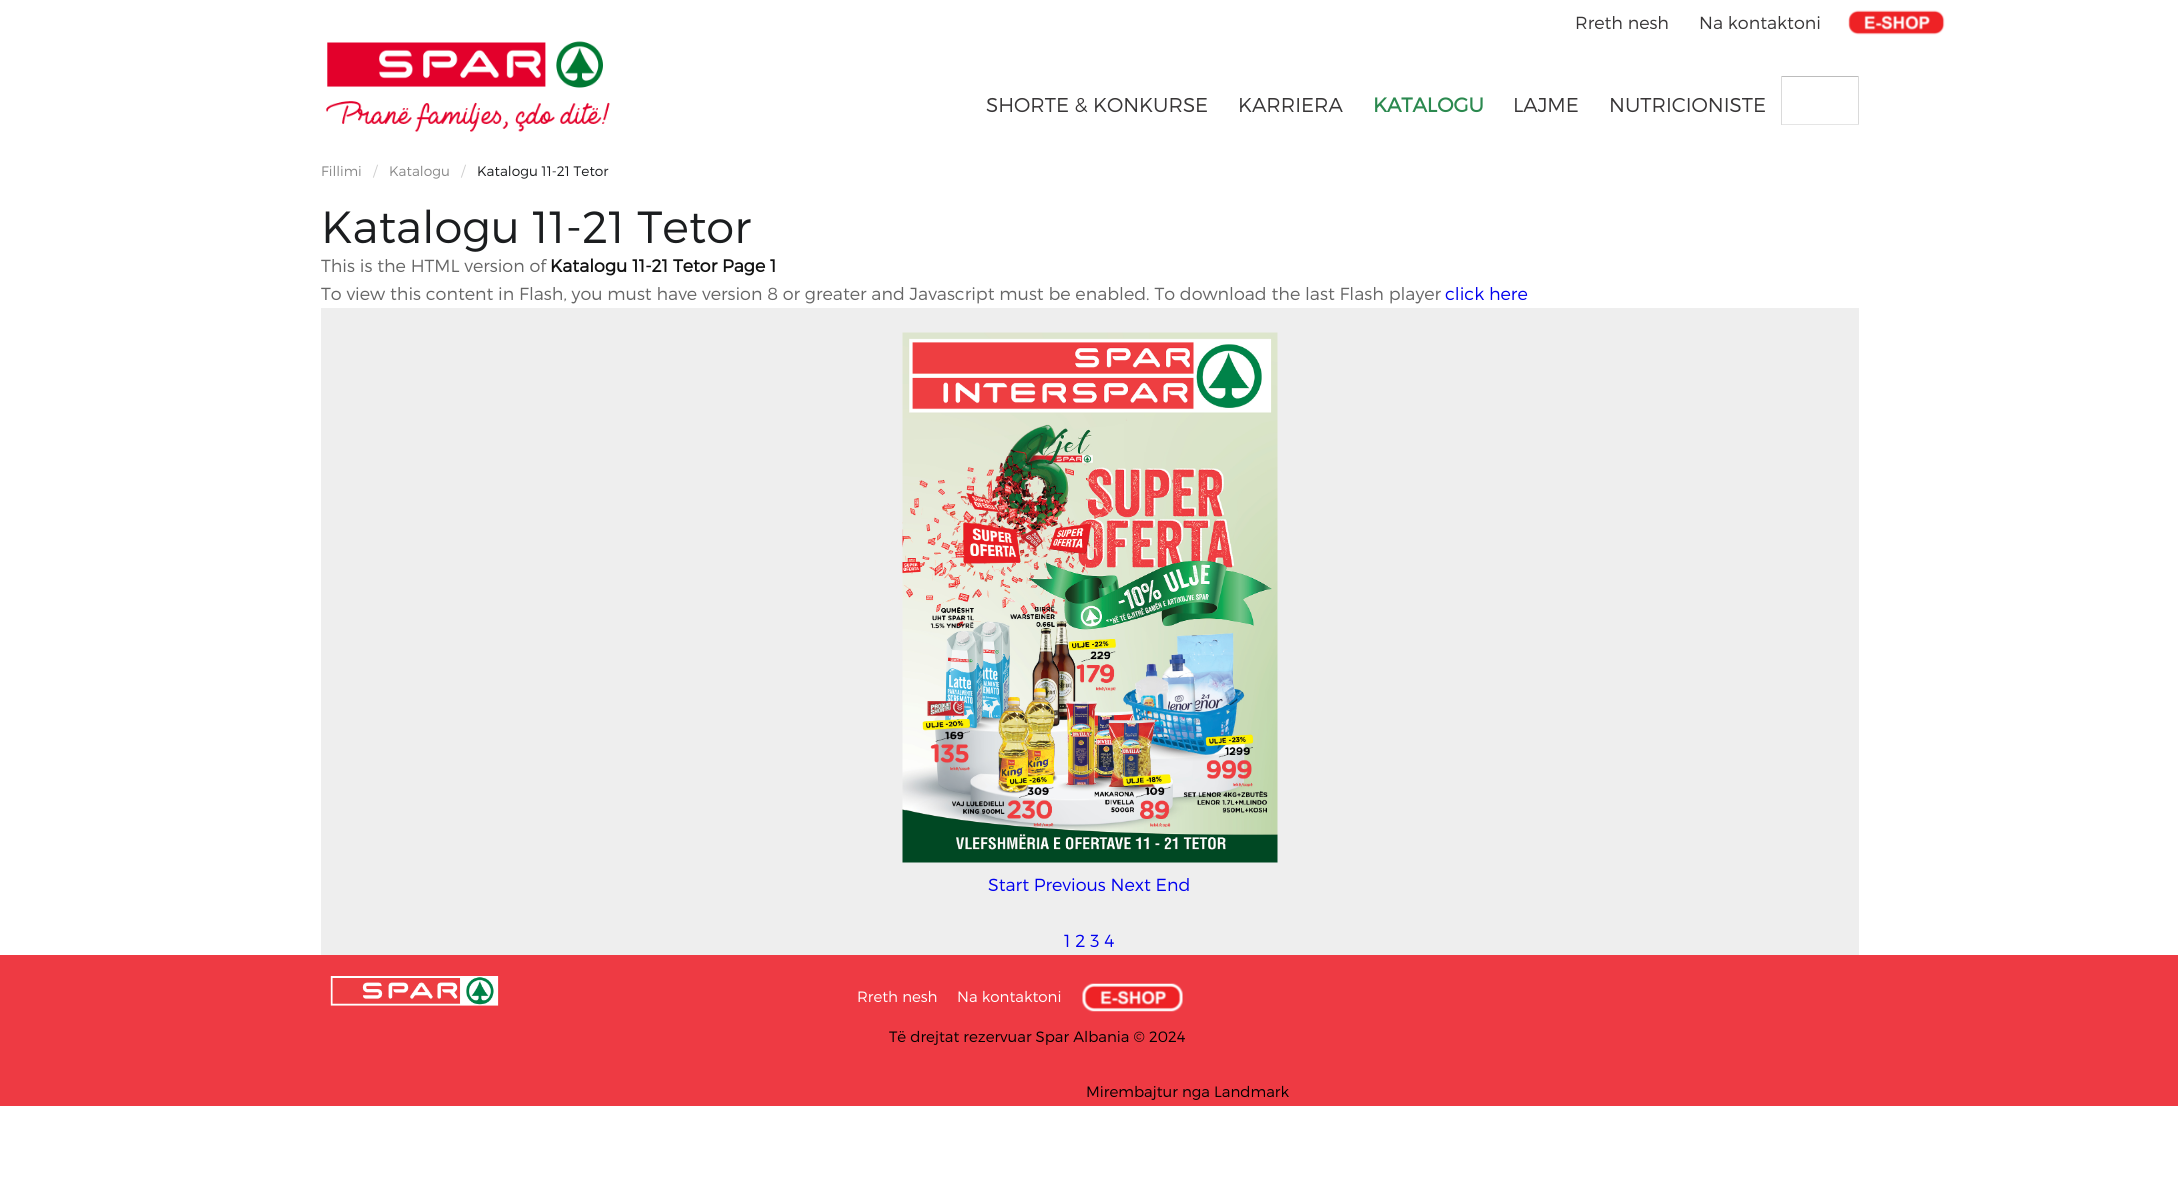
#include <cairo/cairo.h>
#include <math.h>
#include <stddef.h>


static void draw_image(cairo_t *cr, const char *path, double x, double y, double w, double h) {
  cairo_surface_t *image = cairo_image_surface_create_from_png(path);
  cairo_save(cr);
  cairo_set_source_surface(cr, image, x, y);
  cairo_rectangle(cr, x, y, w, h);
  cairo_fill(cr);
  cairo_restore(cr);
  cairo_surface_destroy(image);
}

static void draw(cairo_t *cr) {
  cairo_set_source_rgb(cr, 1, 1, 1);
  cairo_paint(cr);
  draw_image(cr, "images/1.png", 1848, 10, 97, 25);
  draw_image(cr, "images/2.png", 326, 41, 284, 91);
  cairo_set_source_rgb(cr, 188 / 255.0, 188 / 255.0, 188 / 255.0);
  cairo_rectangle(cr, 1781, 76, 78, 1);
  cairo_fill(cr);
  cairo_set_source_rgb(cr, 218 / 255.0, 218 / 255.0, 218 / 255.0);
  cairo_rectangle(cr, 1858, 76, 1, 49);
  cairo_fill(cr);
  cairo_set_source_rgb(cr, 229 / 255.0, 229 / 255.0, 229 / 255.0);
  cairo_rectangle(cr, 1781, 124, 78, 1);
  cairo_fill(cr);
  cairo_set_source_rgb(cr, 218 / 255.0, 218 / 255.0, 218 / 255.0);
  cairo_rectangle(cr, 1781, 76, 1, 49);
  cairo_fill(cr);
  cairo_set_source_rgb(cr, 238 / 255.0, 238 / 255.0, 238 / 255.0);
  cairo_rectangle(cr, 321, 308, 1538, 647);
  cairo_fill(cr);
  draw_image(cr, "images/3.png", 902, 332, 376, 531);
  cairo_set_source_rgb(cr, 238 / 255.0, 58 / 255.0, 67 / 255.0);
  cairo_rectangle(cr, 0, 955, 2178, 151);
  cairo_fill(cr);
  draw_image(cr, "images/4.png", 330, 976, 169, 30);
  draw_image(cr, "images/5.png", 1082, 983, 101, 29);
  cairo_select_font_face(cr, "Montserrat Light", CAIRO_FONT_SLANT_NORMAL, CAIRO_FONT_WEIGHT_NORMAL);
  cairo_set_font_size(cr, 17.5);
  cairo_set_source_rgb(cr, 56 / 255.0, 54 / 255.0, 55 / 255.0);
  cairo_move_to(cr, 1575, 29);
  cairo_show_text(cr, "Rreth nesh");
  cairo_move_to(cr, 1699, 29);
  cairo_show_text(cr, "Na kontaktoni");
  cairo_set_font_size(cr, 20);
  cairo_move_to(cr, 986, 112);
  cairo_show_text(cr, "SHORTE & KONKURSE");
  cairo_move_to(cr, 1238, 112);
  cairo_show_text(cr, "KARRIERA");
  cairo_select_font_face(cr, "Montserrat", CAIRO_FONT_SLANT_NORMAL, CAIRO_FONT_WEIGHT_BOLD);
  cairo_set_source_rgb(cr, 43 / 255.0, 137 / 255.0, 79 / 255.0);
  cairo_move_to(cr, 1373, 112);
  cairo_show_text(cr, "KATALOGU");
  cairo_select_font_face(cr, "Montserrat Light", CAIRO_FONT_SLANT_NORMAL, CAIRO_FONT_WEIGHT_NORMAL);
  cairo_set_source_rgb(cr, 56 / 255.0, 54 / 255.0, 55 / 255.0);
  cairo_move_to(cr, 1513, 112);
  cairo_show_text(cr, "LAJME");
  cairo_move_to(cr, 1609, 112);
  cairo_show_text(cr, "NUTRICIONISTE");
  cairo_set_font_size(cr, 13.75);
  cairo_set_source_rgb(cr, 136 / 255.0, 136 / 255.0, 136 / 255.0);
  cairo_move_to(cr, 321, 176);
  cairo_show_text(cr, "Fillimi");
  cairo_set_source_rgb(cr, 204 / 255.0, 204 / 255.0, 204 / 255.0);
  cairo_move_to(cr, 373, 176);
  cairo_show_text(cr, "/");
  cairo_set_source_rgb(cr, 136 / 255.0, 136 / 255.0, 136 / 255.0);
  cairo_move_to(cr, 389, 176);
  cairo_show_text(cr, "Katalogu");
  cairo_set_source_rgb(cr, 204 / 255.0, 204 / 255.0, 204 / 255.0);
  cairo_move_to(cr, 461, 176);
  cairo_show_text(cr, "/");
  cairo_set_source_rgb(cr, 27 / 255.0, 29 / 255.0, 31 / 255.0);
  cairo_move_to(cr, 477, 176);
  cairo_show_text(cr, "Katalogu 11-21 Tetor");
  cairo_set_font_size(cr, 45);
  cairo_move_to(cr, 321, 243);
  cairo_show_text(cr, "Katalogu 11-21 Tetor");
  cairo_set_font_size(cr, 17.5);
  cairo_set_source_rgb(cr, 102 / 255.0, 102 / 255.0, 102 / 255.0);
  cairo_move_to(cr, 321, 272);
  cairo_show_text(cr, "This is the HTML version of");
  cairo_select_font_face(cr, "Montserrat", CAIRO_FONT_SLANT_NORMAL, CAIRO_FONT_WEIGHT_BOLD);
  cairo_set_source_rgb(cr, 17 / 255.0, 17 / 255.0, 17 / 255.0);
  cairo_move_to(cr, 550, 272);
  cairo_show_text(cr, "Katalogu 11-21 Tetor Page 1");
  cairo_select_font_face(cr, "Montserrat Light", CAIRO_FONT_SLANT_NORMAL, CAIRO_FONT_WEIGHT_NORMAL);
  cairo_set_source_rgb(cr, 102 / 255.0, 102 / 255.0, 102 / 255.0);
  cairo_move_to(cr, 321, 300);
  cairo_show_text(cr, "To view this content in Flash, you must have version 8 or greater and Javascript must be enabled. To download the last Flash player");
  cairo_set_source_rgb(cr, 0, 0, 238 / 255.0);
  cairo_move_to(cr, 1445, 300);
  cairo_show_text(cr, "click here");
  cairo_move_to(cr, 988, 891);
  cairo_show_text(cr, "Start Previous Next End");
  cairo_move_to(cr, 1064, 947);
  cairo_show_text(cr, "1 2 3 4");
  cairo_set_font_size(cr, 15);
  cairo_set_source_rgb(cr, 1, 1, 1);
  cairo_move_to(cr, 857, 1002);
  cairo_show_text(cr, "Rreth nesh");
  cairo_move_to(cr, 957, 1002);
  cairo_show_text(cr, "Na kontaktoni");
  cairo_set_source_rgb(cr, 0, 0, 0);
  cairo_move_to(cr, 889, 1042);
  cairo_show_text(cr, "Të drejtat rezervuar Spar Albania © 2024");
  cairo_move_to(cr, 1086, 1097);
  cairo_show_text(cr, "Mirembajtur nga Landmark");
}

int main(void) {
  cairo_surface_t *surface = cairo_image_surface_create(CAIRO_FORMAT_RGB24, 2178, 1193);
  cairo_t *cr = cairo_create(surface);
  cairo_font_options_t *options = cairo_font_options_create();
  cairo_font_options_set_hint_metrics(options, CAIRO_HINT_METRICS_OFF);
  cairo_font_options_set_hint_style(options, CAIRO_HINT_STYLE_NONE);
  cairo_set_font_options(cr, options);
  cairo_set_miter_limit(cr, 4);
  draw(cr);
  cairo_surface_write_to_png(surface, "out.png");
  cairo_font_options_destroy(options);
  cairo_destroy(cr);
  cairo_surface_destroy(surface);
  return 0;
}
